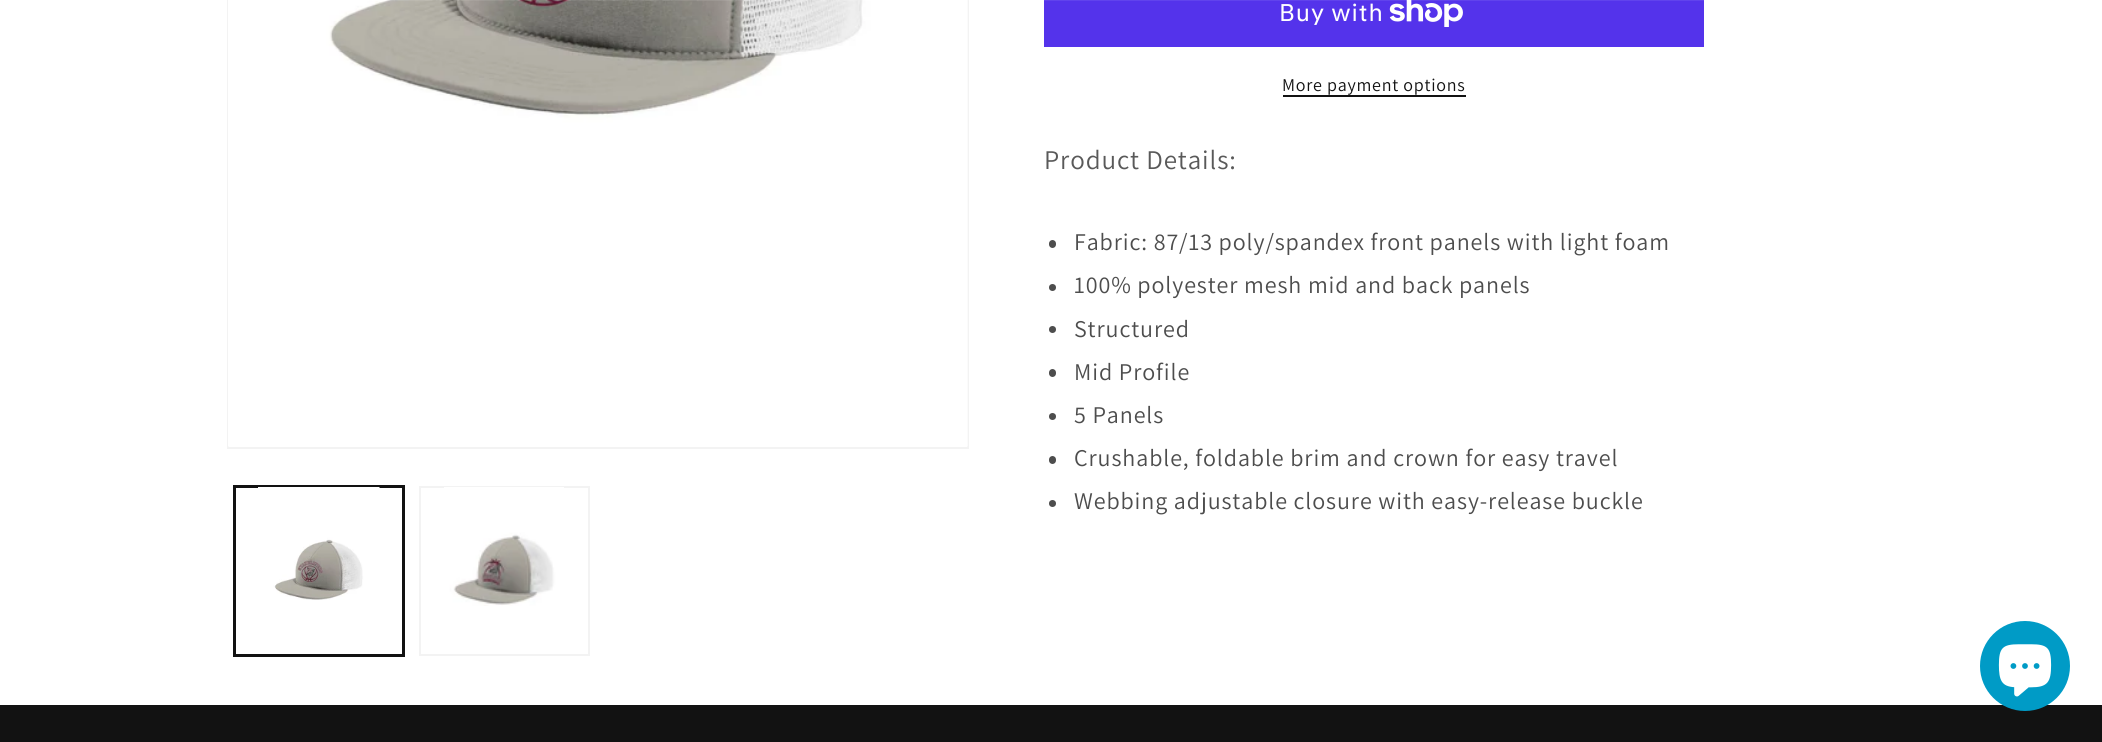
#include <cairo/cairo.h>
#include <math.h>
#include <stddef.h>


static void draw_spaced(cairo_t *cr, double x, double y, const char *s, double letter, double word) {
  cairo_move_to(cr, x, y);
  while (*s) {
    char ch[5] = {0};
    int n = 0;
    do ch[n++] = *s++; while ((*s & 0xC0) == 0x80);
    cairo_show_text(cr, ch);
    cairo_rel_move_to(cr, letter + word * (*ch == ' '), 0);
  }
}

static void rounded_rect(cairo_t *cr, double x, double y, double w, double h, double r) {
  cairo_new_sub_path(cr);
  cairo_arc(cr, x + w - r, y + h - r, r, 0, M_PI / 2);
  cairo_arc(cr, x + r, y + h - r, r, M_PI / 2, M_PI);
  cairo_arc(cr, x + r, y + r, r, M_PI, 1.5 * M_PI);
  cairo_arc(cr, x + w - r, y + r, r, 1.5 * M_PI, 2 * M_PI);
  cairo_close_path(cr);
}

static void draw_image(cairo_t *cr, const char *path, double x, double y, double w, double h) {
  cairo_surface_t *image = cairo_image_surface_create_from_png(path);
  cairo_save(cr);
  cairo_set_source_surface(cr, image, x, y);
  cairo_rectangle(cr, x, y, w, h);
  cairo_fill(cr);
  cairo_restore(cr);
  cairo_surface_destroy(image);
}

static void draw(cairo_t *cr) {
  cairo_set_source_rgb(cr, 1, 1, 1);
  cairo_paint(cr);
  cairo_rectangle(cr, 228, -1, 740, 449);
  cairo_set_source_rgb(cr, 243 / 255.0, 243 / 255.0, 243 / 255.0);
  cairo_stroke(cr);
  draw_image(cr, "images/1.png", 228, 0, 740, 447);
  cairo_set_source_rgb(cr, 84 / 255.0, 51 / 255.0, 235 / 255.0);
  cairo_rectangle(cr, 1044, 0, 660, 47);
  cairo_fill(cr);
  draw_image(cr, "images/4.png", 1389, 0, 74, 27);
  cairo_set_source_rgba(cr, 1, 1, 1, 0.08);
  cairo_rectangle(cr, 388, 0, 1316, 1);
  cairo_fill(cr);
  cairo_rectangle(cr, 234, 486, 170, 170);
  cairo_set_source_rgb(cr, 18 / 255.0, 18 / 255.0, 18 / 255.0);
  cairo_stroke(cr);
  cairo_rectangle(cr, 235, 487, 168, 168);
  cairo_stroke(cr);
  draw_image(cr, "images/2.png", 258, 487, 122, 113);
  cairo_rectangle(cr, 420, 487, 169, 168);
  cairo_set_source_rgb(cr, 243 / 255.0, 243 / 255.0, 243 / 255.0);
  cairo_stroke(cr);
  draw_image(cr, "images/3.png", 444, 487, 120, 119);
  cairo_set_source_rgb(cr, 18 / 255.0, 18 / 255.0, 18 / 255.0);
  cairo_rectangle(cr, 1283, 95, 183, 2);
  cairo_fill(cr);
  cairo_set_source_rgb(cr, 77 / 255.0, 77 / 255.0, 77 / 255.0);
  rounded_rect(cr, 1049, 240, 7, 8, 3.5);
  cairo_fill(cr);
  cairo_arc(cr, 1052.5, 287.5, 3.5, 0, 2 * M_PI);
  cairo_fill(cr);
  cairo_arc(cr, 1052.5, 329.5, 3.5, 0, 2 * M_PI);
  cairo_fill(cr);
  rounded_rect(cr, 1049, 369, 7, 8, 3.5);
  cairo_fill(cr);
  cairo_arc(cr, 1052.5, 416.5, 3.5, 0, 2 * M_PI);
  cairo_fill(cr);
  rounded_rect(cr, 1049, 456, 7, 8, 3.5);
  cairo_fill(cr);
  cairo_arc(cr, 1052.5, 503.5, 3.5, 0, 2 * M_PI);
  cairo_fill(cr);
  cairo_set_source_rgb(cr, 18 / 255.0, 18 / 255.0, 18 / 255.0);
  cairo_rectangle(cr, 0, 705, 2102, 37);
  cairo_fill(cr);
  cairo_set_source_rgb(cr, 0, 155 / 255.0, 198 / 255.0);
  cairo_arc(cr, 2025, 666, 45, 0, 2 * M_PI);
  cairo_fill(cr);
  draw_image(cr, "images/5.png", 1998, 644, 54, 53);
  cairo_select_font_face(cr, "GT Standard", CAIRO_FONT_SLANT_NORMAL, CAIRO_FONT_WEIGHT_NORMAL);
  cairo_set_font_size(cr, 24);
  cairo_set_source_rgb(cr, 1, 1, 1);
  draw_spaced(cr, 1279, 21, "Buy with", 0.9, 0);
  cairo_select_font_face(cr, "Assistant", CAIRO_FONT_SLANT_NORMAL, CAIRO_FONT_WEIGHT_NORMAL);
  cairo_set_font_size(cr, 18);
  cairo_set_source_rgb(cr, 18 / 255.0, 18 / 255.0, 18 / 255.0);
  draw_spaced(cr, 1282, 91, "More payment options", 0.75, 0);
  cairo_set_font_size(cr, 27);
  cairo_set_source_rgb(cr, 89 / 255.0, 89 / 255.0, 89 / 255.0);
  draw_spaced(cr, 1044, 169, "Product Details:", 0.9, 0);
  cairo_set_font_size(cr, 24);
  cairo_set_source_rgb(cr, 77 / 255.0, 77 / 255.0, 77 / 255.0);
  draw_spaced(cr, 1074, 250, "Fabric: 87/13 poly/spandex front panels with light foam", 0.9, 0);
  draw_spaced(cr, 1074, 293, "100% polyester mesh mid and back panels", 0.9, 0);
  draw_spaced(cr, 1074, 337, "Structured", 0.9, 0);
  draw_spaced(cr, 1074, 380, "Mid Profile", 0.9, 0);
  draw_spaced(cr, 1074, 423, "5 Panels", 0.9, 0);
  draw_spaced(cr, 1074, 466, "Crushable, foldable brim and crown for easy travel", 0.9, 0);
  draw_spaced(cr, 1074, 509, "Webbing adjustable closure with easy-release buckle", 0.9, 0);
}

int main(void) {
  cairo_surface_t *surface = cairo_image_surface_create(CAIRO_FORMAT_RGB24, 2102, 742);
  cairo_t *cr = cairo_create(surface);
  cairo_font_options_t *options = cairo_font_options_create();
  cairo_font_options_set_hint_metrics(options, CAIRO_HINT_METRICS_OFF);
  cairo_font_options_set_hint_style(options, CAIRO_HINT_STYLE_NONE);
  cairo_set_font_options(cr, options);
  cairo_set_miter_limit(cr, 4);
  draw(cr);
  cairo_surface_write_to_png(surface, "out.png");
  cairo_font_options_destroy(options);
  cairo_destroy(cr);
  cairo_surface_destroy(surface);
  return 0;
}
